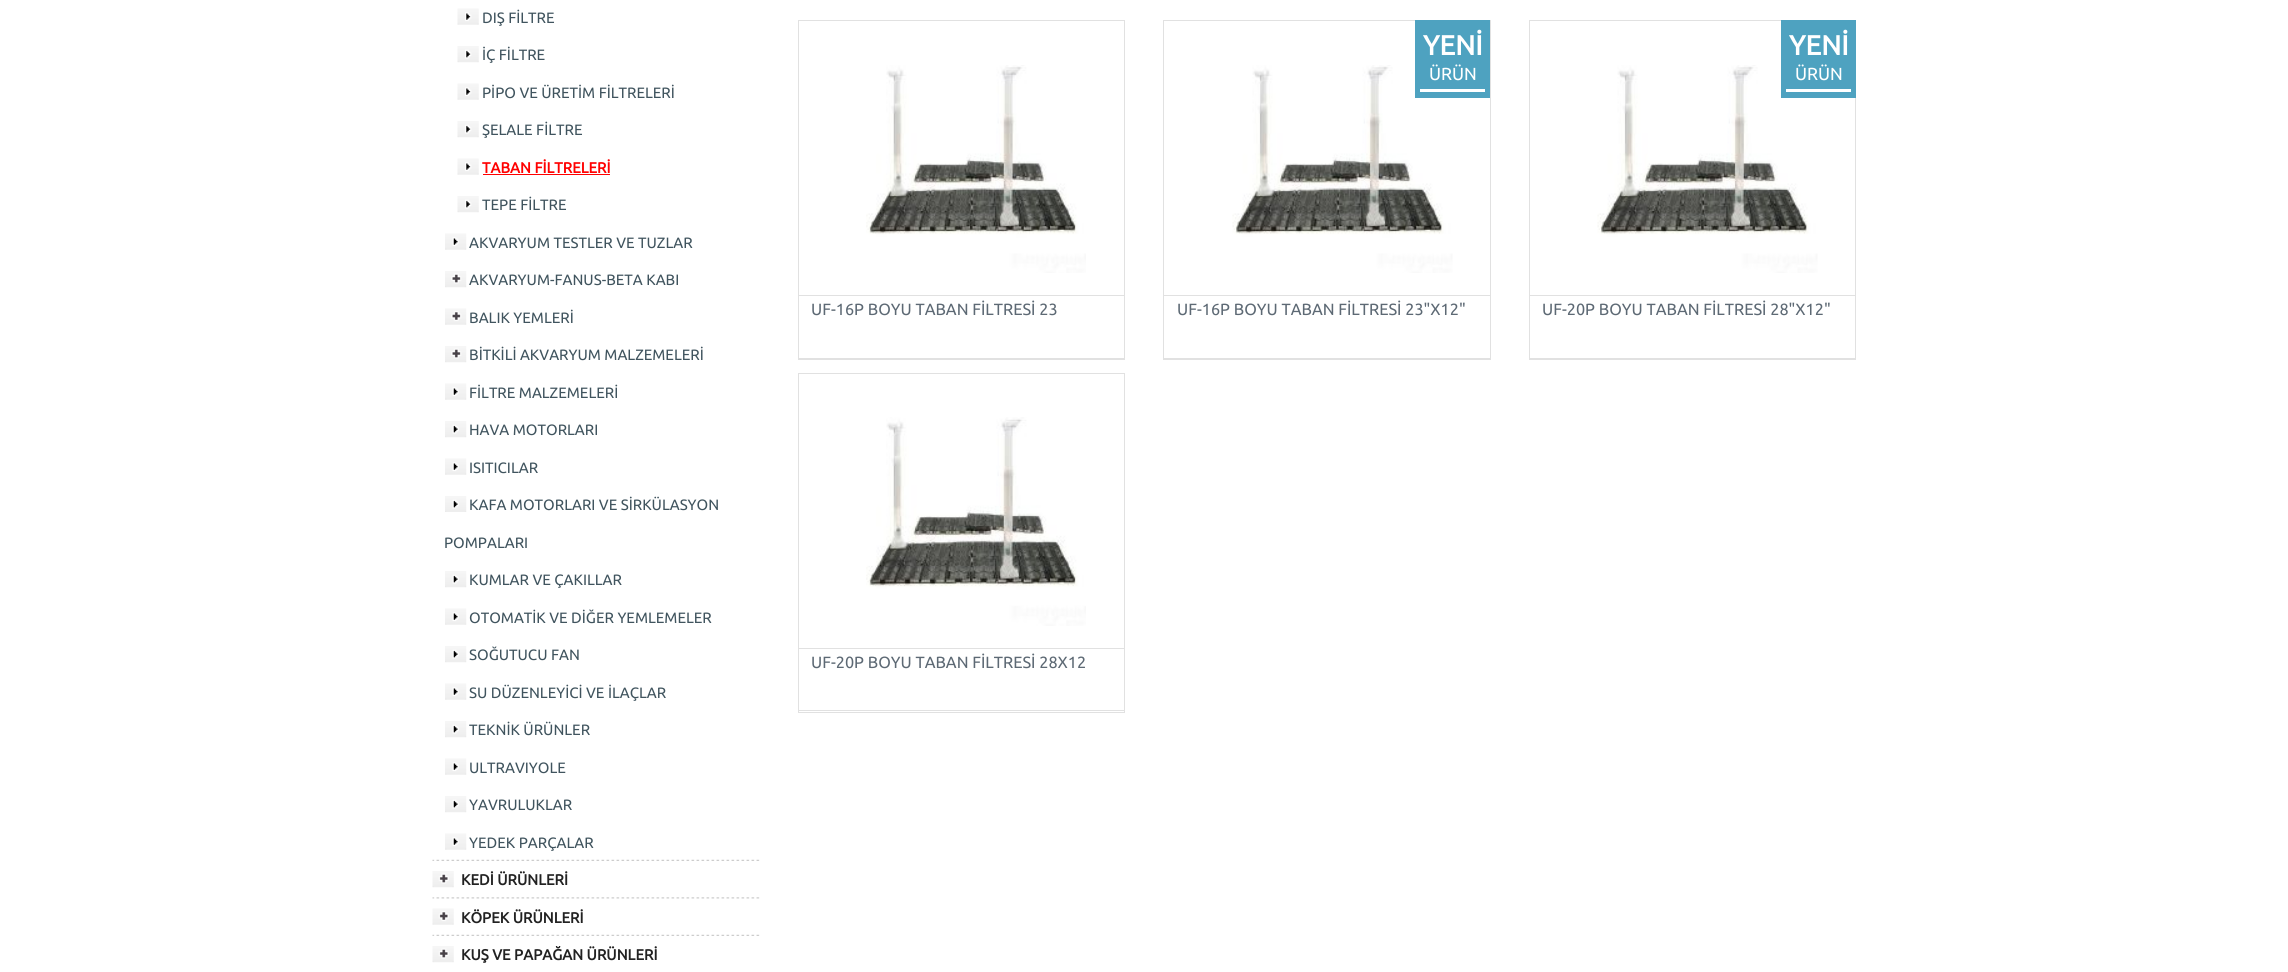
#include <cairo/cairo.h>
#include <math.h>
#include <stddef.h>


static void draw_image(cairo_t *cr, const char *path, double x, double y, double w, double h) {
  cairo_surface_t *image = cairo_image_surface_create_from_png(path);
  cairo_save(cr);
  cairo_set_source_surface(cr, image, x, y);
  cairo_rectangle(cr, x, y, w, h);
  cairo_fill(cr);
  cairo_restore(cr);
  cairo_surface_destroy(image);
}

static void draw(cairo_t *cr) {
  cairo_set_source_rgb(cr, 1, 1, 1);
  cairo_paint(cr);
  draw_image(cr, "images/1.png", 432, 859, 328, 2);
  draw_image(cr, "images/2.png", 457, 8, 22, 17);
  draw_image(cr, "images/3.png", 457, 46, 22, 17);
  draw_image(cr, "images/2.png", 457, 83, 22, 17);
  draw_image(cr, "images/3.png", 457, 121, 22, 17);
  draw_image(cr, "images/2.png", 457, 158, 22, 17);
  cairo_set_source_rgb(cr, 1, 0, 0);
  cairo_rectangle(cr, 483, 174, 127, 1);
  cairo_fill(cr);
  draw_image(cr, "images/3.png", 457, 196, 22, 17);
  draw_image(cr, "images/4.png", 445, 233, 22, 17);
  draw_image(cr, "images/5.png", 445, 271, 22, 17);
  draw_image(cr, "images/6.png", 445, 308, 22, 17);
  draw_image(cr, "images/5.png", 445, 346, 22, 17);
  draw_image(cr, "images/4.png", 445, 383, 22, 17);
  draw_image(cr, "images/7.png", 445, 421, 22, 17);
  draw_image(cr, "images/4.png", 445, 458, 22, 17);
  draw_image(cr, "images/8.png", 445, 496, 22, 16);
  draw_image(cr, "images/7.png", 445, 571, 22, 17);
  draw_image(cr, "images/9.png", 445, 608, 22, 17);
  draw_image(cr, "images/7.png", 445, 646, 22, 17);
  draw_image(cr, "images/4.png", 445, 683, 22, 17);
  draw_image(cr, "images/7.png", 445, 721, 22, 17);
  draw_image(cr, "images/4.png", 445, 758, 22, 17);
  draw_image(cr, "images/7.png", 445, 796, 22, 17);
  draw_image(cr, "images/4.png", 445, 833, 22, 17);
  draw_image(cr, "images/10.png", 432, 897, 328, 2);
  draw_image(cr, "images/11.png", 432, 871, 22, 17);
  draw_image(cr, "images/1.png", 432, 934, 328, 2);
  draw_image(cr, "images/12.png", 432, 908, 22, 17);
  draw_image(cr, "images/11.png", 432, 946, 22, 17);
  cairo_rectangle(cr, 798.5, 20.5, 326, 339);
  cairo_set_source_rgb(cr, 225 / 255.0, 225 / 255.0, 225 / 255.0);
  cairo_set_line_width(cr, 1);
  cairo_stroke(cr);
  cairo_rectangle(cr, 799, 295, 325, 1);
  cairo_fill(cr);
  draw_image(cr, "images/13.png", 866, 65, 220, 208);
  cairo_rectangle(cr, 799, 358, 325, 1);
  cairo_fill(cr);
  cairo_rectangle(cr, 1163.5, 20.5, 327, 339);
  cairo_stroke(cr);
  draw_image(cr, "images/14.png", 1232, 65, 221, 208);
  cairo_set_source_rgb(cr, 78 / 255.0, 162 / 255.0, 192 / 255.0);
  cairo_rectangle(cr, 1415, 20, 75, 78);
  cairo_fill(cr);
  cairo_set_source_rgb(cr, 1, 1, 1);
  cairo_rectangle(cr, 1420, 89, 65, 3);
  cairo_fill(cr);
  cairo_set_source_rgb(cr, 225 / 255.0, 225 / 255.0, 225 / 255.0);
  cairo_rectangle(cr, 1164, 295, 326, 1);
  cairo_fill(cr);
  cairo_rectangle(cr, 1164, 358, 326, 1);
  cairo_fill(cr);
  cairo_rectangle(cr, 1529.5, 20.5, 326, 339);
  cairo_stroke(cr);
  draw_image(cr, "images/15.png", 1597, 65, 221, 208);
  cairo_set_source_rgb(cr, 78 / 255.0, 162 / 255.0, 192 / 255.0);
  cairo_rectangle(cr, 1781, 20, 75, 78);
  cairo_fill(cr);
  cairo_set_source_rgb(cr, 1, 1, 1);
  cairo_rectangle(cr, 1786, 89, 65, 3);
  cairo_fill(cr);
  cairo_set_source_rgb(cr, 225 / 255.0, 225 / 255.0, 225 / 255.0);
  cairo_rectangle(cr, 1530, 295, 325, 1);
  cairo_fill(cr);
  cairo_rectangle(cr, 1530, 358, 325, 1);
  cairo_fill(cr);
  cairo_rectangle(cr, 798.5, 373.5, 326, 339);
  cairo_stroke(cr);
  cairo_rectangle(cr, 799, 648, 325, 1);
  cairo_fill(cr);
  draw_image(cr, "images/16.png", 866, 417, 220, 209);
  cairo_rectangle(cr, 799, 710, 325, 1);
  cairo_fill(cr);
  cairo_select_font_face(cr, "Ubuntu", CAIRO_FONT_SLANT_NORMAL, CAIRO_FONT_WEIGHT_NORMAL);
  cairo_set_font_size(cr, 15);
  cairo_set_source_rgb(cr, 64 / 255.0, 84 / 255.0, 94 / 255.0);
  cairo_move_to(cr, 482, 23);
  cairo_show_text(cr, "DIŞ FİLTRE");
  cairo_move_to(cr, 482, 60);
  cairo_show_text(cr, "İÇ FİLTRE");
  cairo_move_to(cr, 482, 98);
  cairo_show_text(cr, "PİPO VE ÜRETİM FİLTRELERİ");
  cairo_move_to(cr, 482, 135);
  cairo_show_text(cr, "ŞELALE FİLTRE");
  cairo_select_font_face(cr, "Ubuntu", CAIRO_FONT_SLANT_NORMAL, CAIRO_FONT_WEIGHT_BOLD);
  cairo_set_source_rgb(cr, 1, 0, 0);
  cairo_move_to(cr, 482, 173);
  cairo_show_text(cr, "TABAN FİLTRELERİ");
  cairo_select_font_face(cr, "Ubuntu", CAIRO_FONT_SLANT_NORMAL, CAIRO_FONT_WEIGHT_NORMAL);
  cairo_set_source_rgb(cr, 64 / 255.0, 84 / 255.0, 94 / 255.0);
  cairo_move_to(cr, 482, 210);
  cairo_show_text(cr, "TEPE FİLTRE");
  cairo_move_to(cr, 469, 248);
  cairo_show_text(cr, "AKVARYUM TESTLER VE TUZLAR");
  cairo_move_to(cr, 469, 285);
  cairo_show_text(cr, "AKVARYUM-FANUS-BETA KABI");
  cairo_move_to(cr, 469, 323);
  cairo_show_text(cr, "BALIK YEMLERİ");
  cairo_move_to(cr, 469, 360);
  cairo_show_text(cr, "BİTKİLİ AKVARYUM MALZEMELERİ");
  cairo_move_to(cr, 469, 398);
  cairo_show_text(cr, "FİLTRE MALZEMELERİ");
  cairo_move_to(cr, 469, 435);
  cairo_show_text(cr, "HAVA MOTORLARI");
  cairo_move_to(cr, 469, 473);
  cairo_show_text(cr, "ISITICILAR");
  cairo_move_to(cr, 469, 510);
  cairo_show_text(cr, "KAFA MOTORLARI VE SİRKÜLASYON");
  cairo_move_to(cr, 444, 548);
  cairo_show_text(cr, "POMPALARI");
  cairo_move_to(cr, 469, 585);
  cairo_show_text(cr, "KUMLAR VE ÇAKILLAR");
  cairo_move_to(cr, 469, 623);
  cairo_show_text(cr, "OTOMATİK VE DİĞER YEMLEMELER");
  cairo_move_to(cr, 469, 660);
  cairo_show_text(cr, "SOĞUTUCU FAN");
  cairo_move_to(cr, 469, 698);
  cairo_show_text(cr, "SU DÜZENLEYİCİ VE İLAÇLAR");
  cairo_move_to(cr, 469, 735);
  cairo_show_text(cr, "TEKNİK ÜRÜNLER");
  cairo_move_to(cr, 469, 773);
  cairo_show_text(cr, "ULTRAVIYOLE");
  cairo_move_to(cr, 469, 810);
  cairo_show_text(cr, "YAVRULUKLAR");
  cairo_move_to(cr, 469, 848);
  cairo_show_text(cr, "YEDEK PARÇALAR");
  cairo_select_font_face(cr, "Ubuntu", CAIRO_FONT_SLANT_NORMAL, CAIRO_FONT_WEIGHT_BOLD);
  cairo_set_source_rgb(cr, 34 / 255.0, 34 / 255.0, 34 / 255.0);
  cairo_move_to(cr, 461, 885);
  cairo_show_text(cr, "KEDİ ÜRÜNLERİ");
  cairo_move_to(cr, 461, 923);
  cairo_show_text(cr, "KÖPEK ÜRÜNLERİ");
  cairo_move_to(cr, 461, 960);
  cairo_show_text(cr, "KUŞ VE PAPAĞAN ÜRÜNLERİ");
  cairo_select_font_face(cr, "Ubuntu", CAIRO_FONT_SLANT_NORMAL, CAIRO_FONT_WEIGHT_NORMAL);
  cairo_set_font_size(cr, 16.25);
  cairo_set_source_rgb(cr, 93 / 255.0, 105 / 255.0, 116 / 255.0);
  cairo_move_to(cr, 811, 315);
  cairo_show_text(cr, "UF-16P BOYU TABAN FİLTRESİ 23");
  cairo_select_font_face(cr, "Ubuntu", CAIRO_FONT_SLANT_NORMAL, CAIRO_FONT_WEIGHT_BOLD);
  cairo_set_font_size(cr, 27.5);
  cairo_set_source_rgb(cr, 1, 1, 1);
  cairo_move_to(cr, 1423, 55);
  cairo_show_text(cr, "YENİ");
  cairo_select_font_face(cr, "Ubuntu", CAIRO_FONT_SLANT_NORMAL, CAIRO_FONT_WEIGHT_NORMAL);
  cairo_set_font_size(cr, 17.5);
  cairo_move_to(cr, 1429, 80);
  cairo_show_text(cr, "ÜRÜN");
  cairo_set_font_size(cr, 16.25);
  cairo_set_source_rgb(cr, 93 / 255.0, 105 / 255.0, 116 / 255.0);
  cairo_move_to(cr, 1177, 315);
  cairo_show_text(cr, "UF-16P BOYU TABAN FİLTRESİ 23\"X12\"");
  cairo_select_font_face(cr, "Ubuntu", CAIRO_FONT_SLANT_NORMAL, CAIRO_FONT_WEIGHT_BOLD);
  cairo_set_font_size(cr, 27.5);
  cairo_set_source_rgb(cr, 1, 1, 1);
  cairo_move_to(cr, 1789, 55);
  cairo_show_text(cr, "YENİ");
  cairo_select_font_face(cr, "Ubuntu", CAIRO_FONT_SLANT_NORMAL, CAIRO_FONT_WEIGHT_NORMAL);
  cairo_set_font_size(cr, 17.5);
  cairo_move_to(cr, 1795, 80);
  cairo_show_text(cr, "ÜRÜN");
  cairo_set_font_size(cr, 16.25);
  cairo_set_source_rgb(cr, 93 / 255.0, 105 / 255.0, 116 / 255.0);
  cairo_move_to(cr, 1542, 315);
  cairo_show_text(cr, "UF-20P BOYU TABAN FİLTRESİ 28\"X12\"");
  cairo_move_to(cr, 811, 668);
  cairo_show_text(cr, "UF-20P BOYU TABAN FİLTRESİ 28X12");
}

int main(void) {
  cairo_surface_t *surface = cairo_image_surface_create(CAIRO_FORMAT_RGB24, 2288, 972);
  cairo_t *cr = cairo_create(surface);
  cairo_font_options_t *options = cairo_font_options_create();
  cairo_font_options_set_hint_metrics(options, CAIRO_HINT_METRICS_OFF);
  cairo_font_options_set_hint_style(options, CAIRO_HINT_STYLE_NONE);
  cairo_set_font_options(cr, options);
  cairo_set_miter_limit(cr, 4);
  draw(cr);
  cairo_surface_write_to_png(surface, "out.png");
  cairo_font_options_destroy(options);
  cairo_destroy(cr);
  cairo_surface_destroy(surface);
  return 0;
}
